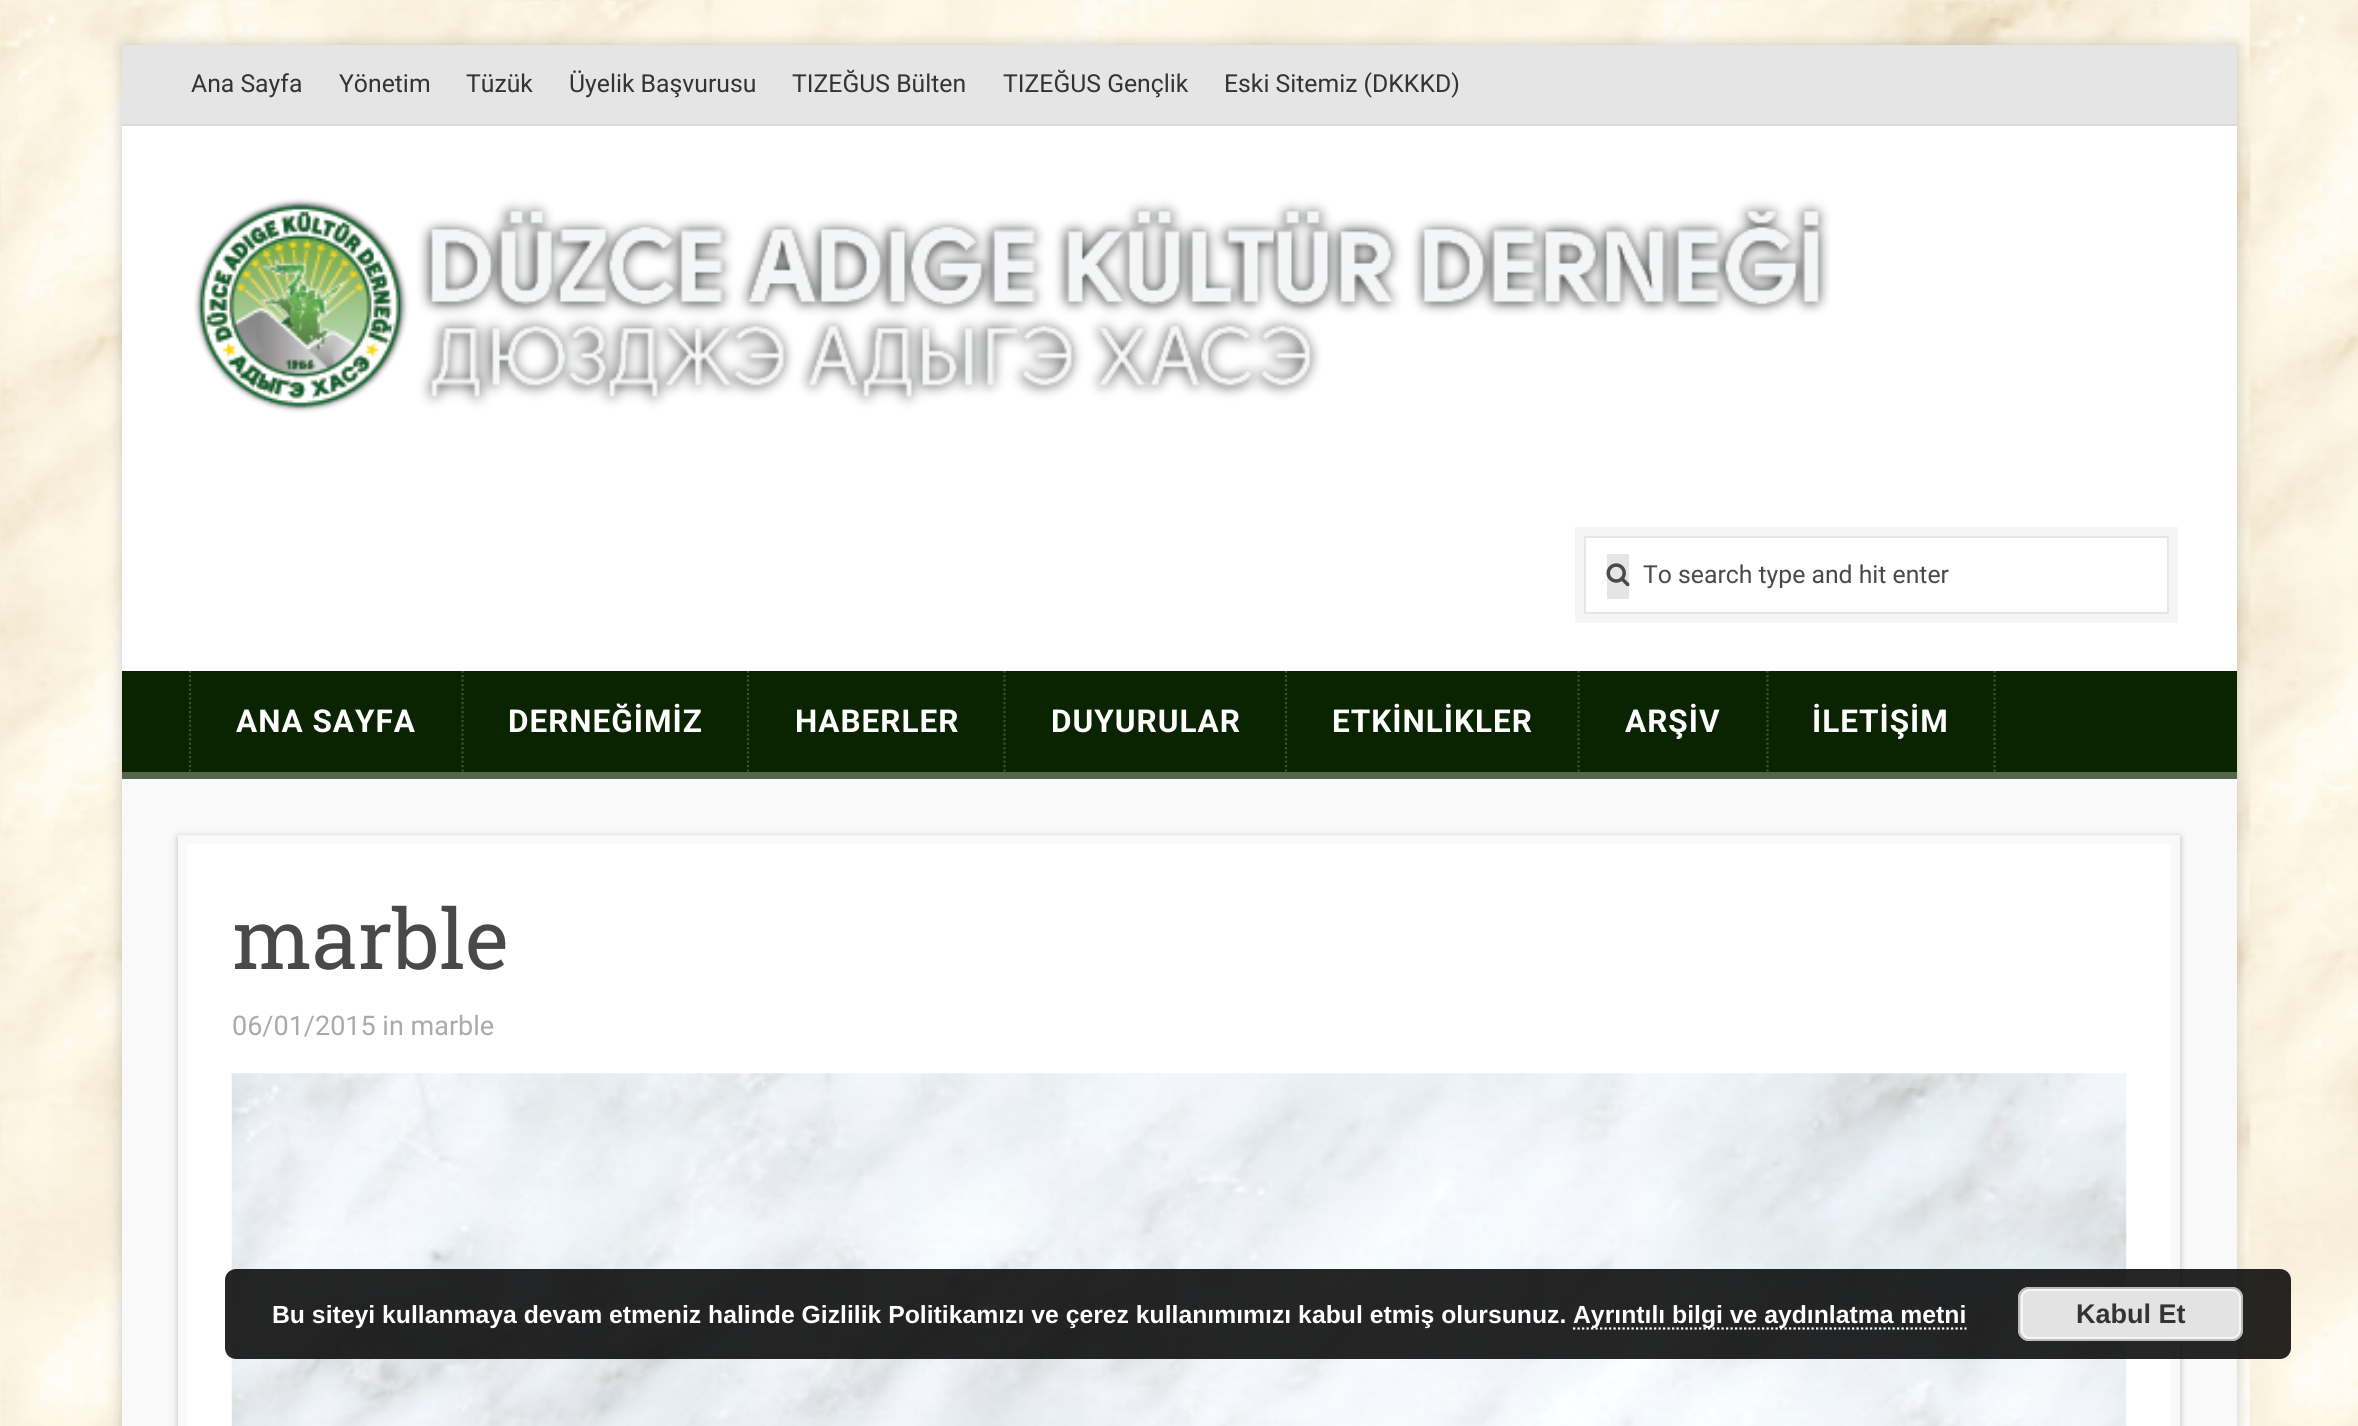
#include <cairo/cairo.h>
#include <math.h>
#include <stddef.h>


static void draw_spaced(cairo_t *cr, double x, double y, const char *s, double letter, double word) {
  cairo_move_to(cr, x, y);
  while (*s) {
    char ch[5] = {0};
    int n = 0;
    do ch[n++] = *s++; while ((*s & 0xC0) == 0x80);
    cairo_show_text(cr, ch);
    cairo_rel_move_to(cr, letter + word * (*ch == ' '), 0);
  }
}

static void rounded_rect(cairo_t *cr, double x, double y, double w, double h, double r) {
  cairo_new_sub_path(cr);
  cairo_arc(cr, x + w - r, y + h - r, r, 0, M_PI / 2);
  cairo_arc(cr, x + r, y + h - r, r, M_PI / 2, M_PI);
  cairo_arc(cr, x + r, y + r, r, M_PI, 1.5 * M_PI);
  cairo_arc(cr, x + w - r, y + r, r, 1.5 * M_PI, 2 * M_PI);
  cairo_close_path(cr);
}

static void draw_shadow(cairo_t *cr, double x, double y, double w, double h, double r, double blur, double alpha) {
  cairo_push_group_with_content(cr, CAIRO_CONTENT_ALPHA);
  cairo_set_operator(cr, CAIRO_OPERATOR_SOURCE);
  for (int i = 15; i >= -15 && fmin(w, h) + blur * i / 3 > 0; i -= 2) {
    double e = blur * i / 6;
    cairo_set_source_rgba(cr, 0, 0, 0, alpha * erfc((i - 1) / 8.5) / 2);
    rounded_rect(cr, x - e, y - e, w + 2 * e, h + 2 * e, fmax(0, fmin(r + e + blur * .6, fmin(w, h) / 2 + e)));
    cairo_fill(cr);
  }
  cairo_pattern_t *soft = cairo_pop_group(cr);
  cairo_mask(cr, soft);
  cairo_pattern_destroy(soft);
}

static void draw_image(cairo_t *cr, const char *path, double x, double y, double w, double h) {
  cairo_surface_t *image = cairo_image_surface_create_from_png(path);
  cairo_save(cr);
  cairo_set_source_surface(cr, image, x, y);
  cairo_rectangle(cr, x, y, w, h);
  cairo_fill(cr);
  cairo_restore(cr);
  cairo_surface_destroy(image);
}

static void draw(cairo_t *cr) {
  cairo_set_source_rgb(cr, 1, 1, 1);
  cairo_paint(cr);
  draw_image(cr, "images/1.png", 0, 0, 2358, 1426);
  cairo_set_source_rgb(cr, 0, 0, 0);
  draw_shadow(cr, 122, 45, 2115, 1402, 0, 7, 0.2);
  cairo_set_source_rgb(cr, 1, 1, 1);
  cairo_rectangle(cr, 122, 126, 2115, 545);
  cairo_fill(cr);
  cairo_set_source_rgb(cr, 229 / 255.0, 229 / 255.0, 229 / 255.0);
  cairo_rectangle(cr, 122, 45, 2115, 79);
  cairo_fill(cr);
  cairo_set_source_rgb(cr, 218 / 255.0, 218 / 255.0, 218 / 255.0);
  cairo_rectangle(cr, 122, 124, 2115, 2);
  cairo_fill(cr);
  draw_image(cr, "images/2.png", 194, 198, 1636, 215);
  cairo_rectangle(cr, 1579.5, 531.5, 594, 87);
  cairo_set_source_rgb(cr, 245 / 255.0, 245 / 255.0, 245 / 255.0);
  cairo_set_line_width(cr, 9);
  cairo_stroke(cr);
  cairo_rectangle(cr, 1585, 537, 583, 76);
  cairo_set_source_rgb(cr, 230 / 255.0, 230 / 255.0, 230 / 255.0);
  cairo_set_line_width(cr, 2);
  cairo_stroke(cr);
  cairo_set_source_rgb(cr, 229 / 255.0, 229 / 255.0, 229 / 255.0);
  cairo_rectangle(cr, 1607, 554, 22, 45);
  cairo_fill(cr);
  draw_image(cr, "images/3.png", 1606, 563, 24, 24);
  cairo_set_source_rgb(cr, 10 / 255.0, 35 / 255.0, 0);
  cairo_rectangle(cr, 122, 671, 2115, 101);
  cairo_fill(cr);
  cairo_set_source_rgb(cr, 84 / 255.0, 101 / 255.0, 77 / 255.0);
  cairo_rectangle(cr, 122, 772, 2115, 7);
  cairo_fill(cr);
  cairo_new_path(cr);
  cairo_move_to(cr, 190, 670.5);
  cairo_line_to(cr, 190, 772);
  cairo_set_source_rgba(cr, 1, 1, 1, 0.2);
  cairo_set_line_width(cr, 2.2);
  cairo_set_dash(cr, (double[]){2.25, 2.25}, 2, 0);
  cairo_stroke(cr);
  cairo_new_path(cr);
  cairo_move_to(cr, 462.5, 670.5);
  cairo_line_to(cr, 462.5, 772);
  cairo_stroke(cr);
  cairo_new_path(cr);
  cairo_move_to(cr, 748, 670.5);
  cairo_line_to(cr, 748, 772);
  cairo_stroke(cr);
  cairo_new_path(cr);
  cairo_move_to(cr, 1004.5, 670.5);
  cairo_line_to(cr, 1004.5, 772);
  cairo_stroke(cr);
  cairo_new_path(cr);
  cairo_move_to(cr, 1286, 670.5);
  cairo_line_to(cr, 1286, 772);
  cairo_stroke(cr);
  cairo_new_path(cr);
  cairo_move_to(cr, 1578.5, 670.5);
  cairo_line_to(cr, 1578.5, 772);
  cairo_stroke(cr);
  cairo_new_path(cr);
  cairo_move_to(cr, 1767.5, 670.5);
  cairo_line_to(cr, 1767.5, 772);
  cairo_stroke(cr);
  cairo_new_path(cr);
  cairo_move_to(cr, 1994.5, 670.5);
  cairo_line_to(cr, 1994.5, 772);
  cairo_stroke(cr);
  cairo_set_source_rgb(cr, 249 / 255.0, 249 / 255.0, 249 / 255.0);
  cairo_rectangle(cr, 122, 779, 2115, 647);
  cairo_fill(cr);
  cairo_set_source_rgb(cr, 0, 0, 0);
  draw_shadow(cr, 178, 837, 2002, 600, 0, 3.5, 0.25);
  cairo_set_source_rgb(cr, 1, 1, 1);
  cairo_rectangle(cr, 182.5, 839.5, 1993, 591);
  cairo_fill_preserve(cr);
  cairo_set_source_rgb(cr, 249 / 255.0, 249 / 255.0, 249 / 255.0);
  cairo_set_line_width(cr, 9);
  cairo_set_dash(cr, NULL, 0, 0);
  cairo_stroke(cr);
  draw_image(cr, "images/4.png", 231, 1073, 1896, 353);
  cairo_set_source_rgba(cr, 0, 0, 0, 0.85);
  rounded_rect(cr, 225, 1269, 2066, 90, 11);
  cairo_fill(cr);
  cairo_new_path(cr);
  cairo_move_to(cr, 1573, 1328.5);
  cairo_line_to(cr, 1966.5, 1328.5);
  cairo_set_source_rgb(cr, 1, 1, 1);
  cairo_set_line_width(cr, 2.2);
  cairo_set_dash(cr, (double[]){2.25, 2.25}, 2, 0);
  cairo_stroke(cr);
  cairo_set_source_rgb(cr, 227 / 255.0, 227 / 255.0, 227 / 255.0);
  rounded_rect(cr, 2018, 1287, 225, 54, 11);
  cairo_fill(cr);
  rounded_rect(cr, 2022, 1290, 218, 48, 8);
  cairo_set_source_rgb(cr, 246 / 255.0, 246 / 255.0, 246 / 255.0);
  cairo_set_line_width(cr, 2);
  cairo_set_dash(cr, NULL, 0, 0);
  cairo_stroke(cr);
  rounded_rect(cr, 2019, 1288, 223, 52, 10);
  cairo_set_source_rgb(cr, 187 / 255.0, 187 / 255.0, 187 / 255.0);
  cairo_stroke(cr);
  cairo_select_font_face(cr, "Roboto", CAIRO_FONT_SLANT_NORMAL, CAIRO_FONT_WEIGHT_NORMAL);
  cairo_set_font_size(cr, 24.75);
  cairo_set_source_rgb(cr, 51 / 255.0, 51 / 255.0, 51 / 255.0);
  cairo_move_to(cr, 191, 92);
  cairo_show_text(cr, "Ana Sayfa");
  cairo_move_to(cr, 339, 92);
  cairo_show_text(cr, "Yönetim");
  cairo_move_to(cr, 466, 92);
  cairo_show_text(cr, "Tüzük");
  cairo_move_to(cr, 569, 92);
  cairo_show_text(cr, "Üyelik Başvurusu");
  cairo_move_to(cr, 792, 92);
  cairo_show_text(cr, "TIZEĞUS Bülten");
  cairo_move_to(cr, 1003, 92);
  cairo_show_text(cr, "TIZEĞUS Gençlik");
  cairo_move_to(cr, 1224, 92);
  cairo_show_text(cr, "Eski Sitemiz (DKKKD)");
  cairo_set_source_rgb(cr, 73 / 255.0, 73 / 255.0, 73 / 255.0);
  cairo_move_to(cr, 1643, 583);
  cairo_show_text(cr, "To search type and hit enter");
  cairo_select_font_face(cr, "Roboto", CAIRO_FONT_SLANT_NORMAL, CAIRO_FONT_WEIGHT_BOLD);
  cairo_set_font_size(cr, 31.5);
  cairo_set_source_rgb(cr, 1, 1, 1);
  draw_spaced(cr, 236, 732, "ANA SAYFA", 1, 0);
  draw_spaced(cr, 508, 732, "DERNEĞİMİZ", 1, 0);
  draw_spaced(cr, 795, 732, "HABERLER", 1, 0);
  draw_spaced(cr, 1051, 732, "DUYURULAR", 1, 0);
  draw_spaced(cr, 1332, 732, "ETKİNLİKLER", 1, 0);
  draw_spaced(cr, 1625, 732, "ARŞİV", 1, 0);
  draw_spaced(cr, 1812, 732, "İLETİŞİM", 1, 0);
  cairo_select_font_face(cr, "Roboto Slab", CAIRO_FONT_SLANT_NORMAL, CAIRO_FONT_WEIGHT_NORMAL);
  cairo_set_font_size(cr, 83);
  cairo_set_source_rgb(cr, 73 / 255.0, 73 / 255.0, 73 / 255.0);
  cairo_move_to(cr, 232, 969);
  cairo_show_text(cr, "marble");
  cairo_select_font_face(cr, "Roboto", CAIRO_FONT_SLANT_NORMAL, CAIRO_FONT_WEIGHT_NORMAL);
  cairo_set_font_size(cr, 27);
  cairo_set_source_rgb(cr, 170 / 255.0, 170 / 255.0, 170 / 255.0);
  cairo_move_to(cr, 232, 1035);
  cairo_show_text(cr, "06/01/2015 in marble");
  cairo_select_font_face(cr, "Liberation Sans", CAIRO_FONT_SLANT_NORMAL, CAIRO_FONT_WEIGHT_BOLD);
  cairo_set_font_size(cr, 24.75);
  cairo_set_source_rgb(cr, 1, 1, 1);
  cairo_move_to(cr, 272, 1323);
  cairo_show_text(cr, "Bu siteyi kullanmaya devam etmeniz halinde Gizlilik Politikamızı ve çerez kullanımımızı kabul etmiş olursunuz.");
  cairo_move_to(cr, 1573, 1323);
  cairo_show_text(cr, "Ayrıntılı bilgi ve aydınlatma metni");
  cairo_set_font_size(cr, 27);
  cairo_set_source_rgb(cr, 51 / 255.0, 51 / 255.0, 51 / 255.0);
  cairo_move_to(cr, 2076, 1323);
  cairo_show_text(cr, "Kabul Et");
}

int main(void) {
  cairo_surface_t *surface = cairo_image_surface_create(CAIRO_FORMAT_RGB24, 2358, 1426);
  cairo_t *cr = cairo_create(surface);
  cairo_font_options_t *options = cairo_font_options_create();
  cairo_font_options_set_hint_metrics(options, CAIRO_HINT_METRICS_OFF);
  cairo_font_options_set_hint_style(options, CAIRO_HINT_STYLE_NONE);
  cairo_set_font_options(cr, options);
  cairo_set_miter_limit(cr, 4);
  draw(cr);
  cairo_surface_write_to_png(surface, "out.png");
  cairo_font_options_destroy(options);
  cairo_destroy(cr);
  cairo_surface_destroy(surface);
  return 0;
}
